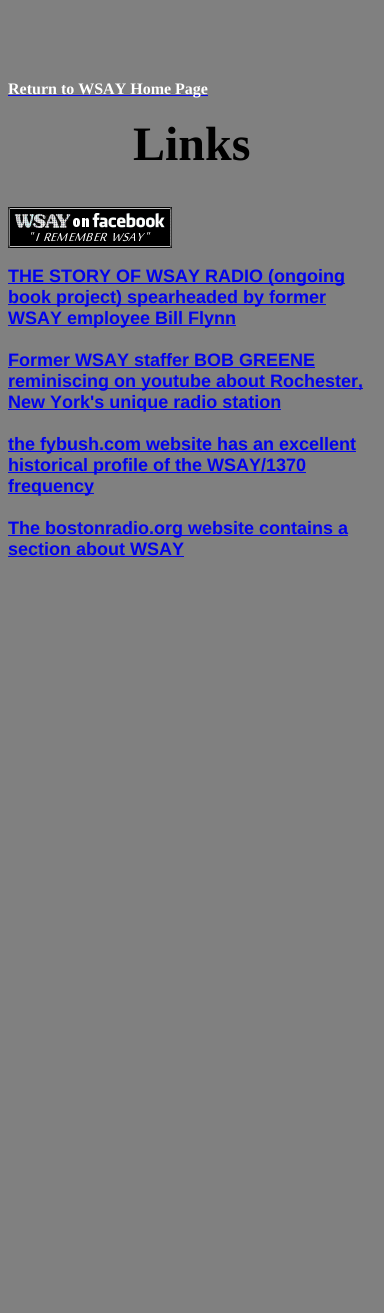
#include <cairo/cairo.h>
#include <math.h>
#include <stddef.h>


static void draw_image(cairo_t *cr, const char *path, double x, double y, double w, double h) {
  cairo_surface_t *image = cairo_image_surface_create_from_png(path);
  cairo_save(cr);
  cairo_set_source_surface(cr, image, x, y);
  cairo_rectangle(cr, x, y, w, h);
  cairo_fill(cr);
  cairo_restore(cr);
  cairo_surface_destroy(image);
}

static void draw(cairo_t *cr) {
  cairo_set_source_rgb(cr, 128 / 255.0, 128 / 255.0, 128 / 255.0);
  cairo_paint(cr);
  cairo_set_source_rgb(cr, 0, 0, 238 / 255.0);
  cairo_rectangle(cr, 8, 95, 200, 1);
  cairo_fill(cr);
  draw_image(cr, "images/1.png", 8, 207, 164, 41);
  cairo_rectangle(cr, 8, 283, 337, 1);
  cairo_fill(cr);
  cairo_rectangle(cr, 8, 304, 318, 1);
  cairo_fill(cr);
  cairo_rectangle(cr, 8, 325, 228, 1);
  cairo_fill(cr);
  cairo_rectangle(cr, 8, 367, 307, 1);
  cairo_fill(cr);
  cairo_rectangle(cr, 8, 388, 355, 1);
  cairo_fill(cr);
  cairo_rectangle(cr, 8, 409, 273, 1);
  cairo_fill(cr);
  cairo_rectangle(cr, 8, 451, 348, 1);
  cairo_fill(cr);
  cairo_rectangle(cr, 8, 472, 298, 1);
  cairo_fill(cr);
  cairo_rectangle(cr, 8, 493, 86, 1);
  cairo_fill(cr);
  cairo_rectangle(cr, 8, 535, 340, 1);
  cairo_fill(cr);
  cairo_rectangle(cr, 8, 556, 176, 1);
  cairo_fill(cr);
  cairo_select_font_face(cr, "Liberation Serif", CAIRO_FONT_SLANT_NORMAL, CAIRO_FONT_WEIGHT_BOLD);
  cairo_set_font_size(cr, 16);
  cairo_set_source_rgb(cr, 1, 1, 1);
  cairo_move_to(cr, 8, 94);
  cairo_show_text(cr, "Return to WSAY Home Page");
  cairo_set_font_size(cr, 48);
  cairo_set_source_rgb(cr, 0, 0, 0);
  cairo_move_to(cr, 133, 160);
  cairo_show_text(cr, "Links");
  cairo_select_font_face(cr, "Liberation Sans", CAIRO_FONT_SLANT_NORMAL, CAIRO_FONT_WEIGHT_BOLD);
  cairo_set_font_size(cr, 18);
  cairo_set_source_rgb(cr, 0, 0, 238 / 255.0);
  cairo_move_to(cr, 8, 282);
  cairo_show_text(cr, "THE STORY OF WSAY RADIO (ongoing");
  cairo_move_to(cr, 8, 303);
  cairo_show_text(cr, "book project) spearheaded by former");
  cairo_move_to(cr, 8, 324);
  cairo_show_text(cr, "WSAY employee Bill Flynn");
  cairo_move_to(cr, 8, 366);
  cairo_show_text(cr, "Former WSAY staffer BOB GREENE");
  cairo_move_to(cr, 8, 387);
  cairo_show_text(cr, "reminiscing on youtube about Rochester,");
  cairo_move_to(cr, 8, 408);
  cairo_show_text(cr, "New York's unique radio station");
  cairo_move_to(cr, 8, 450);
  cairo_show_text(cr, "the fybush.com website has an excellent");
  cairo_move_to(cr, 8, 471);
  cairo_show_text(cr, "historical profile of the WSAY/1370");
  cairo_move_to(cr, 8, 492);
  cairo_show_text(cr, "frequency");
  cairo_move_to(cr, 8, 534);
  cairo_show_text(cr, "The bostonradio.org website contains a");
  cairo_move_to(cr, 8, 555);
  cairo_show_text(cr, "section about WSAY");
}

int main(void) {
  cairo_surface_t *surface = cairo_image_surface_create(CAIRO_FORMAT_RGB24, 384, 1313);
  cairo_t *cr = cairo_create(surface);
  cairo_font_options_t *options = cairo_font_options_create();
  cairo_font_options_set_hint_metrics(options, CAIRO_HINT_METRICS_OFF);
  cairo_font_options_set_hint_style(options, CAIRO_HINT_STYLE_NONE);
  cairo_set_font_options(cr, options);
  cairo_set_miter_limit(cr, 4);
  draw(cr);
  cairo_surface_write_to_png(surface, "out.png");
  cairo_font_options_destroy(options);
  cairo_destroy(cr);
  cairo_surface_destroy(surface);
  return 0;
}
